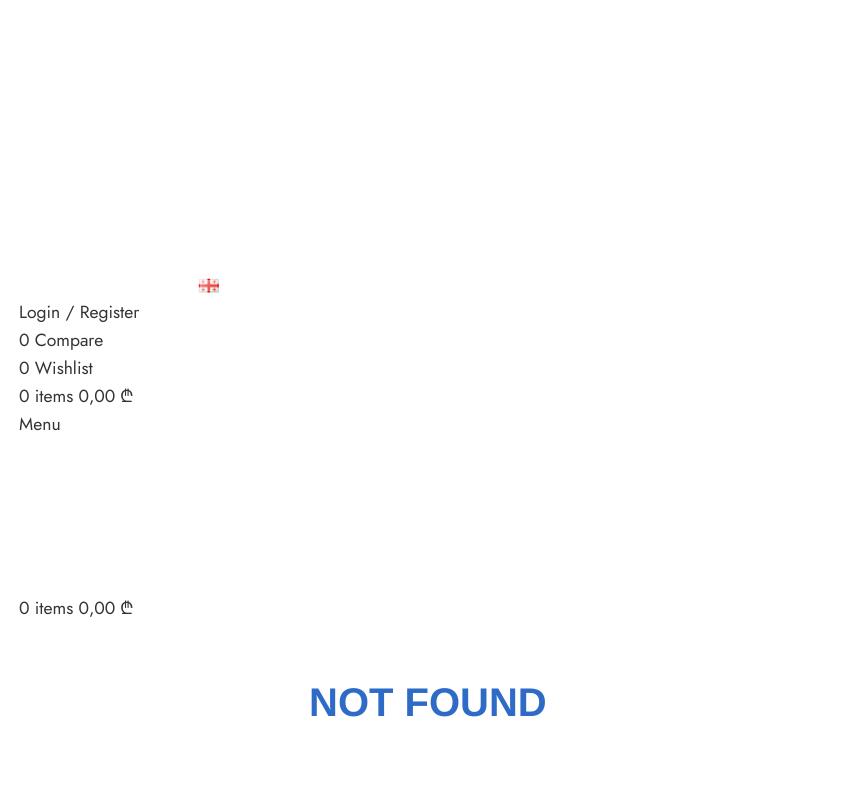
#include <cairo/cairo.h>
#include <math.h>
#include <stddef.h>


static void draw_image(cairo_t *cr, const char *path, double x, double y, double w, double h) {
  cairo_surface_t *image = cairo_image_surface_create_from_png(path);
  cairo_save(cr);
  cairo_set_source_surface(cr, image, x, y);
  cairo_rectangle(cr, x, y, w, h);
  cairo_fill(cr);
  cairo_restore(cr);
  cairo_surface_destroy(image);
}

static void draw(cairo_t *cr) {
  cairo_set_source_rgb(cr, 1, 1, 1);
  cairo_paint(cr);
  draw_image(cr, "images/1.png", 198, 278, 21, 15);
  cairo_select_font_face(cr, "Jost", CAIRO_FONT_SLANT_NORMAL, CAIRO_FONT_WEIGHT_NORMAL);
  cairo_set_font_size(cr, 17.5);
  cairo_set_source_rgb(cr, 51 / 255.0, 51 / 255.0, 51 / 255.0);
  cairo_move_to(cr, 19, 318);
  cairo_show_text(cr, "Login / Register");
  cairo_move_to(cr, 19, 346);
  cairo_show_text(cr, "0 Compare");
  cairo_move_to(cr, 19, 374);
  cairo_show_text(cr, "0 Wishlist");
  cairo_move_to(cr, 19, 402);
  cairo_show_text(cr, "0 items 0,00");
  cairo_select_font_face(cr, "Noto Sans", CAIRO_FONT_SLANT_NORMAL, CAIRO_FONT_WEIGHT_NORMAL);
  cairo_move_to(cr, 120, 402);
  cairo_show_text(cr, "₾");
  cairo_select_font_face(cr, "Jost", CAIRO_FONT_SLANT_NORMAL, CAIRO_FONT_WEIGHT_NORMAL);
  cairo_move_to(cr, 19, 430);
  cairo_show_text(cr, "Menu");
  cairo_move_to(cr, 19, 614);
  cairo_show_text(cr, "0 items 0,00");
  cairo_select_font_face(cr, "Noto Sans", CAIRO_FONT_SLANT_NORMAL, CAIRO_FONT_WEIGHT_NORMAL);
  cairo_move_to(cr, 120, 614);
  cairo_show_text(cr, "₾");
  cairo_select_font_face(cr, "Liberation Sans", CAIRO_FONT_SLANT_NORMAL, CAIRO_FONT_WEIGHT_BOLD);
  cairo_set_font_size(cr, 40);
  cairo_set_source_rgb(cr, 46 / 255.0, 107 / 255.0, 198 / 255.0);
  cairo_move_to(cr, 309, 716);
  cairo_show_text(cr, "NOT FOUND");
}

int main(void) {
  cairo_surface_t *surface = cairo_image_surface_create(CAIRO_FORMAT_RGB24, 855, 804);
  cairo_t *cr = cairo_create(surface);
  cairo_font_options_t *options = cairo_font_options_create();
  cairo_font_options_set_hint_metrics(options, CAIRO_HINT_METRICS_OFF);
  cairo_font_options_set_hint_style(options, CAIRO_HINT_STYLE_NONE);
  cairo_set_font_options(cr, options);
  cairo_set_miter_limit(cr, 4);
  draw(cr);
  cairo_surface_write_to_png(surface, "out.png");
  cairo_font_options_destroy(options);
  cairo_destroy(cr);
  cairo_surface_destroy(surface);
  return 0;
}
